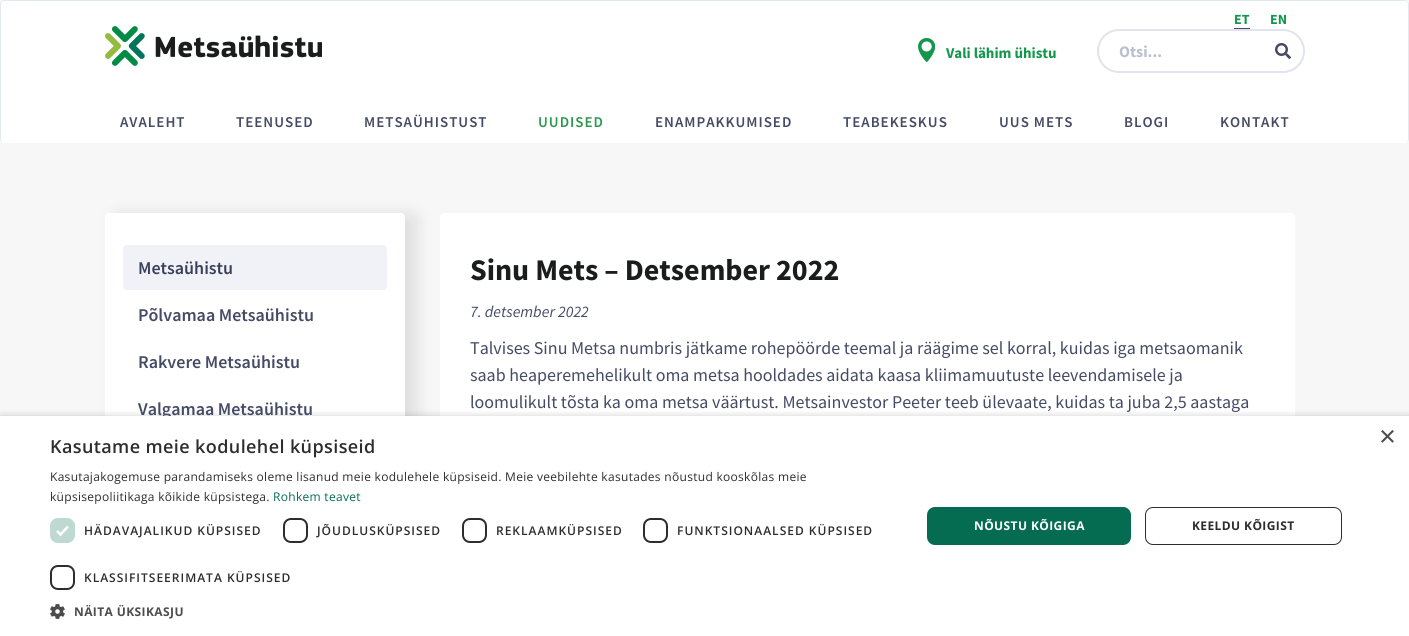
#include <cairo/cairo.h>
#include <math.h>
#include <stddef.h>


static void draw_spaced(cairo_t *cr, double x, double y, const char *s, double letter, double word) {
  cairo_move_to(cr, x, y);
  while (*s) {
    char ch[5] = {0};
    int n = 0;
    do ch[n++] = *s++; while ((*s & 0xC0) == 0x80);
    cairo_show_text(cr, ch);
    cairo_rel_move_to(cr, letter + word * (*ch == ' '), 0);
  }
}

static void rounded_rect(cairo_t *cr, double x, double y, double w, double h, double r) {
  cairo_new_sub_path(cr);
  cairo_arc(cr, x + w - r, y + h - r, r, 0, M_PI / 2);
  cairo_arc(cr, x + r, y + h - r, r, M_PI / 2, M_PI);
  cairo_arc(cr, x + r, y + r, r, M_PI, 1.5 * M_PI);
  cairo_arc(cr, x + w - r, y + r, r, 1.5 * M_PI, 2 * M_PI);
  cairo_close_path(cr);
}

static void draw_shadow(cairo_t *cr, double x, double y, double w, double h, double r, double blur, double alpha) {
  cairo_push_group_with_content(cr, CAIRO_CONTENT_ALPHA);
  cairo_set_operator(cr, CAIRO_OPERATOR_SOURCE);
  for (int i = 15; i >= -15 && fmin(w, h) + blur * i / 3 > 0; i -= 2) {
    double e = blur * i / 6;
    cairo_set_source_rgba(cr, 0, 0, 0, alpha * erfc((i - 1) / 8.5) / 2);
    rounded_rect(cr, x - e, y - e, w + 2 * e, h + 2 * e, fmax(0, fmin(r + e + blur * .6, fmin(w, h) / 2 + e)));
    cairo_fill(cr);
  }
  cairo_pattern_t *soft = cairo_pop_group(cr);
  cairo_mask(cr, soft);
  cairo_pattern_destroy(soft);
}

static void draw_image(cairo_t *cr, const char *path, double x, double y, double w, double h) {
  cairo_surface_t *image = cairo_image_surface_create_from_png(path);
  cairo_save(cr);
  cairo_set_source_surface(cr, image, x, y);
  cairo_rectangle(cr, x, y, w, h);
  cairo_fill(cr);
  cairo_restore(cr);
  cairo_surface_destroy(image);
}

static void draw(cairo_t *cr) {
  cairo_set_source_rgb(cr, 247 / 255.0, 247 / 255.0, 247 / 255.0);
  cairo_paint(cr);
  cairo_set_source_rgb(cr, 1, 1, 1);
  rounded_rect(cr, 0, 0, 1409, 143, 4);
  cairo_fill(cr);
  cairo_set_source_rgb(cr, 228 / 255.0, 232 / 255.0, 240 / 255.0);
  cairo_set_fill_rule(cr, CAIRO_FILL_RULE_EVEN_ODD);
  cairo_new_path(cr);
  cairo_move_to(cr, 4, 0);
  cairo_line_to(cr, 1405, 0);
  cairo_curve_to(cr, 1407, 0, 1409, 2, 1409, 4);
  cairo_line_to(cr, 1409, 139);
  cairo_curve_to(cr, 1409, 141, 1407, 143, 1405, 143);
  cairo_line_to(cr, 4, 143);
  cairo_curve_to(cr, 2, 143, 0, 141, 0, 139);
  cairo_line_to(cr, 0, 4);
  cairo_curve_to(cr, 0, 2, 2, 0, 4, 0);
  cairo_close_path(cr);
  cairo_move_to(cr, 4, 1);
  cairo_line_to(cr, 1405, 1);
  cairo_curve_to(cr, 1407, 1, 1408, 2, 1408, 4);
  cairo_line_to(cr, 1408, 139);
  cairo_curve_to(cr, 1408, 141, 1407, 143, 1405, 143);
  cairo_line_to(cr, 4, 143);
  cairo_curve_to(cr, 2, 143, 1, 141, 1, 139);
  cairo_line_to(cr, 1, 4);
  cairo_curve_to(cr, 1, 2, 2, 1, 4, 1);
  cairo_close_path(cr);
  cairo_fill(cr);
  draw_image(cr, "images/1.png", 918, 38, 17, 24);
  cairo_set_source_rgb(cr, 69 / 255.0, 75 / 255.0, 101 / 255.0);
  cairo_rectangle(cr, 1234, 28, 16, 1);
  cairo_fill(cr);
  rounded_rect(cr, 1098, 30, 206, 42, 21);
  cairo_set_source_rgb(cr, 225 / 255.0, 228 / 255.0, 237 / 255.0);
  cairo_stroke(cr);
  draw_image(cr, "images/2.png", 1275, 43, 16, 16);
  draw_image(cr, "images/3.png", 105, 26, 217, 40);
  cairo_set_source_rgb(cr, 0, 0, 0);
  draw_shadow(cr, 116, 215, 300, 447, 4, 9, 0.11);
  cairo_set_source_rgb(cr, 1, 1, 1);
  rounded_rect(cr, 105, 213, 300, 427, 4);
  cairo_fill(cr);
  cairo_set_source_rgb(cr, 240 / 255.0, 242 / 255.0, 247 / 255.0);
  rounded_rect(cr, 123, 245, 264, 45, 4);
  cairo_fill(cr);
  cairo_set_source_rgb(cr, 1, 1, 1);
  rounded_rect(cr, 440, 213, 855, 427, 4);
  cairo_fill(cr);
  cairo_set_source_rgb(cr, 0, 0, 0);
  draw_shadow(cr, 1, 418, 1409, 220, 0, 4, 0.35);
  cairo_select_font_face(cr, "Source Sans Pro", CAIRO_FONT_SLANT_NORMAL, CAIRO_FONT_WEIGHT_BOLD);
  cairo_set_font_size(cr, 15);
  cairo_set_source_rgb(cr, 20 / 255.0, 151 / 255.0, 77 / 255.0);
  cairo_move_to(cr, 946, 58);
  cairo_show_text(cr, "Vali lähim ühistu");
  cairo_set_font_size(cr, 14);
  cairo_move_to(cr, 1234, 24);
  cairo_show_text(cr, "ET");
  cairo_move_to(cr, 1270, 24);
  cairo_show_text(cr, "EN");
  cairo_set_font_size(cr, 16);
  cairo_set_source_rgb(cr, 185 / 255.0, 190 / 255.0, 209 / 255.0);
  cairo_move_to(cr, 1119, 57);
  cairo_show_text(cr, "Otsi...");
  cairo_select_font_face(cr, "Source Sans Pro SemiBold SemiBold", CAIRO_FONT_SLANT_NORMAL, CAIRO_FONT_WEIGHT_NORMAL);
  cairo_set_font_size(cr, 15);
  cairo_set_source_rgb(cr, 69 / 255.0, 75 / 255.0, 101 / 255.0);
  draw_spaced(cr, 120, 127, "AVALEHT", 1, 0);
  draw_spaced(cr, 236, 127, "TEENUSED", 1, 0);
  draw_spaced(cr, 364, 127, "METSAÜHISTUST", 1, 0);
  cairo_set_source_rgb(cr, 42 / 255.0, 152 / 255.0, 77 / 255.0);
  draw_spaced(cr, 538, 127, "UUDISED", 1, 0);
  cairo_set_source_rgb(cr, 69 / 255.0, 75 / 255.0, 101 / 255.0);
  draw_spaced(cr, 655, 127, "ENAMPAKKUMISED", 1, 0);
  draw_spaced(cr, 843, 127, "TEABEKESKUS", 1, 0);
  draw_spaced(cr, 999, 127, "UUS METS", 1, 0);
  draw_spaced(cr, 1124, 127, "BLOGI", 1, 0);
  draw_spaced(cr, 1220, 127, "KONTAKT", 1, 0);
  cairo_set_font_size(cr, 18);
  cairo_set_source_rgb(cr, 58 / 255.0, 64 / 255.0, 91 / 255.0);
  cairo_move_to(cr, 138, 274);
  cairo_show_text(cr, "Metsaühistu");
  cairo_set_source_rgb(cr, 69 / 255.0, 75 / 255.0, 101 / 255.0);
  cairo_move_to(cr, 138, 321);
  cairo_show_text(cr, "Põlvamaa Metsaühistu");
  cairo_move_to(cr, 138, 368);
  cairo_show_text(cr, "Rakvere Metsaühistu");
  cairo_move_to(cr, 138, 415);
  cairo_show_text(cr, "Valgamaa Metsaühistu");
  cairo_select_font_face(cr, "Source Sans Pro", CAIRO_FONT_SLANT_NORMAL, CAIRO_FONT_WEIGHT_BOLD);
  cairo_set_font_size(cr, 30);
  cairo_set_source_rgb(cr, 27 / 255.0, 28 / 255.0, 28 / 255.0);
  cairo_move_to(cr, 470, 280);
  cairo_show_text(cr, "Sinu Mets – Detsember 2022");
  cairo_select_font_face(cr, "Source Sans Pro", CAIRO_FONT_SLANT_ITALIC, CAIRO_FONT_WEIGHT_NORMAL);
  cairo_set_font_size(cr, 16);
  cairo_set_source_rgb(cr, 69 / 255.0, 75 / 255.0, 101 / 255.0);
  cairo_move_to(cr, 470, 317);
  cairo_show_text(cr, "7. detsember 2022");
  cairo_select_font_face(cr, "Source Sans Pro", CAIRO_FONT_SLANT_NORMAL, CAIRO_FONT_WEIGHT_NORMAL);
  cairo_set_font_size(cr, 18);
  cairo_move_to(cr, 470, 354);
  cairo_show_text(cr, "Talvises Sinu Metsa numbris jätkame rohepöörde teemal ja räägime sel korral, kuidas iga metsaomanik");
  cairo_move_to(cr, 470, 381);
  cairo_show_text(cr, "saab heaperemehelikult oma metsa hooldades aidata kaasa kliimamuutuste leevendamisele ja");
  cairo_move_to(cr, 470, 408);
  cairo_show_text(cr, "loomulikult tõsta ka oma metsa väärtust. Metsainvestor Peeter teeb ülevaate, kuidas ta juba 2,5 aastaga");
  cairo_set_source_rgb(cr, 1, 1, 1);
  cairo_rectangle(cr, 0, 416, 1409, 220);
  cairo_fill(cr);
  cairo_select_font_face(cr, "Liberation Sans", CAIRO_FONT_SLANT_NORMAL, CAIRO_FONT_WEIGHT_NORMAL);
  cairo_set_font_size(cr, 29);
  cairo_set_source_rgb(cr, 77 / 255.0, 77 / 255.0, 77 / 255.0);
  cairo_move_to(cr, 1379, 446);
  cairo_show_text(cr, "×");
  cairo_select_font_face(cr, "Open Sans SemiBold", CAIRO_FONT_SLANT_NORMAL, CAIRO_FONT_WEIGHT_NORMAL);
  cairo_set_font_size(cr, 18);
  cairo_set_source_rgb(cr, 45 / 255.0, 45 / 255.0, 45 / 255.0);
  draw_spaced(cr, 50, 453, "Kasutame meie kodulehel küpsiseid", 0.4, 0);
  cairo_select_font_face(cr, "Open Sans", CAIRO_FONT_SLANT_NORMAL, CAIRO_FONT_WEIGHT_NORMAL);
  cairo_set_font_size(cr, 12);
  draw_spaced(cr, 50, 481, "Kasutajakogemuse parandamiseks oleme lisanud meie kodulehele küpsiseid. Meie veebilehte kasutades nõustud kooskõlas meie", 0.3, 0);
  draw_spaced(cr, 50, 501, "küpsisepoliitikaga kõikide küpsistega.", 0.3, 0);
  cairo_set_source_rgb(cr, 5 / 255.0, 108 / 255.0, 82 / 255.0);
  draw_spaced(cr, 273, 501, "Rohkem teavet", 0.3, 0);
  cairo_set_source_rgb(cr, 190 / 255.0, 217 / 255.0, 210 / 255.0);
  rounded_rect(cr, 50, 518, 25, 25, 8);
  cairo_fill(cr);
  cairo_new_path(cr);
  cairo_move_to(cr, 57, 531);
  cairo_line_to(cr, 60.5, 534.5);
  cairo_line_to(cr, 68, 526.5);
  cairo_set_source_rgb(cr, 1, 1, 1);
  cairo_set_line_width(cr, 2.6);
  cairo_stroke(cr);
  cairo_select_font_face(cr, "Open Sans SemiBold", CAIRO_FONT_SLANT_NORMAL, CAIRO_FONT_WEIGHT_NORMAL);
  cairo_set_source_rgb(cr, 45 / 255.0, 45 / 255.0, 45 / 255.0);
  draw_spaced(cr, 84, 535, "HÄDAVAJALIKUD KÜPSISED", 1, 0);
  rounded_rect(cr, 284, 519, 23, 23, 7);
  cairo_set_line_width(cr, 2);
  cairo_stroke(cr);
  draw_spaced(cr, 317, 535, "JÕUDLUSKÜPSISED", 1, 0);
  rounded_rect(cr, 463, 519, 23, 23, 7);
  cairo_stroke(cr);
  draw_spaced(cr, 496, 535, "REKLAAMKÜPSISED", 1, 0);
  rounded_rect(cr, 644, 519, 23, 23, 7);
  cairo_stroke(cr);
  draw_spaced(cr, 677, 535, "FUNKTSIONAALSED KÜPSISED", 1, 0);
  rounded_rect(cr, 51, 566, 23, 23, 7);
  cairo_stroke(cr);
  draw_spaced(cr, 84, 582, "KLASSIFITSEERIMATA KÜPSISED", 1, 0);
  draw_image(cr, "images/4.png", 50, 604, 15, 15);
  cairo_select_font_face(cr, "Open Sans", CAIRO_FONT_SLANT_NORMAL, CAIRO_FONT_WEIGHT_BOLD);
  cairo_set_source_rgb(cr, 77 / 255.0, 77 / 255.0, 77 / 255.0);
  draw_spaced(cr, 74, 616, "NÄITA ÜKSIKASJU", 0.4, 0);
  cairo_set_source_rgb(cr, 5 / 255.0, 108 / 255.0, 82 / 255.0);
  rounded_rect(cr, 927, 507, 204, 38, 8);
  cairo_fill(cr);
  cairo_set_source_rgb(cr, 1, 1, 1);
  draw_spaced(cr, 974, 530, "NÕUSTU KÕIGIGA", 0.4, 0);
  rounded_rect(cr, 1145.5, 507.5, 196, 37, 7.5);
  cairo_set_source_rgb(cr, 45 / 255.0, 45 / 255.0, 45 / 255.0);
  cairo_set_line_width(cr, 1);
  cairo_stroke(cr);
  draw_spaced(cr, 1192, 530, "KEELDU KÕIGIST", 0.4, 0);
}

int main(void) {
  cairo_surface_t *surface = cairo_image_surface_create(CAIRO_FORMAT_RGB24, 1409, 636);
  cairo_t *cr = cairo_create(surface);
  cairo_font_options_t *options = cairo_font_options_create();
  cairo_font_options_set_hint_metrics(options, CAIRO_HINT_METRICS_OFF);
  cairo_font_options_set_hint_style(options, CAIRO_HINT_STYLE_NONE);
  cairo_set_font_options(cr, options);
  cairo_set_miter_limit(cr, 4);
  draw(cr);
  cairo_surface_write_to_png(surface, "out.png");
  cairo_font_options_destroy(options);
  cairo_destroy(cr);
  cairo_surface_destroy(surface);
  return 0;
}
